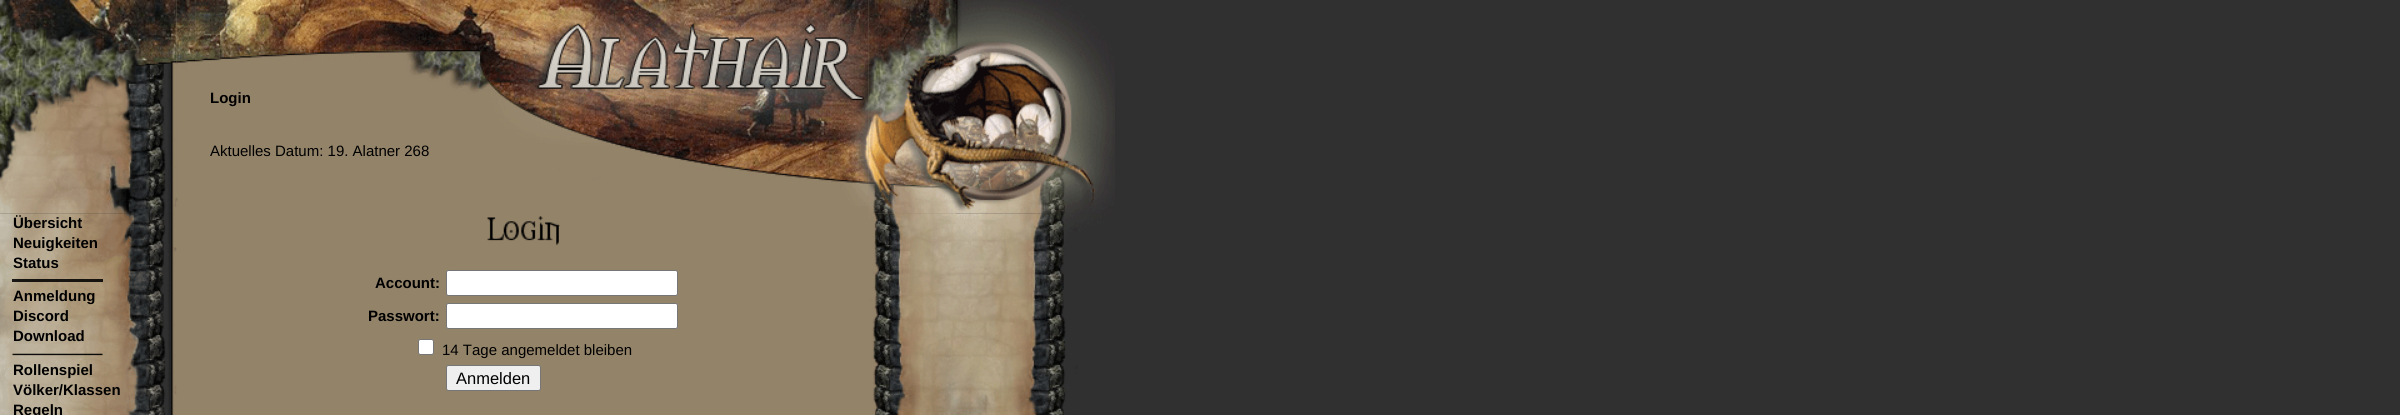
#include <cairo/cairo.h>
#include <math.h>
#include <stddef.h>


static void rounded_rect(cairo_t *cr, double x, double y, double w, double h, double r) {
  cairo_new_sub_path(cr);
  cairo_arc(cr, x + w - r, y + h - r, r, 0, M_PI / 2);
  cairo_arc(cr, x + r, y + h - r, r, M_PI / 2, M_PI);
  cairo_arc(cr, x + r, y + r, r, M_PI, 1.5 * M_PI);
  cairo_arc(cr, x + w - r, y + r, r, 1.5 * M_PI, 2 * M_PI);
  cairo_close_path(cr);
}

static void draw_image(cairo_t *cr, const char *path, double x, double y, double w, double h) {
  cairo_surface_t *image = cairo_image_surface_create_from_png(path);
  cairo_save(cr);
  cairo_set_source_surface(cr, image, x, y);
  cairo_rectangle(cr, x, y, w, h);
  cairo_fill(cr);
  cairo_restore(cr);
  cairo_surface_destroy(image);
}

static void draw(cairo_t *cr) {
  cairo_set_source_rgb(cr, 1, 1, 1);
  cairo_paint(cr);
  draw_image(cr, "images/1.png", 0, 0, 2400, 415);
  draw_image(cr, "images/2.png", 0, 0, 177, 214);
  draw_image(cr, "images/3.png", 176, 0, 693, 206);
  draw_image(cr, "images/4.png", 868, 0, 247, 214);
  draw_image(cr, "images/5.png", 0, 213, 177, 202);
  cairo_set_source_rgba(cr, 0, 0, 0, 0.87);
  cairo_rectangle(cr, 12, 279, 91, 3);
  cairo_fill(cr);
  draw_image(cr, "images/6.png", 12, 353, 91, 3);
  draw_image(cr, "images/7.png", 487, 216, 73, 30);
  cairo_set_source_rgb(cr, 1, 1, 1);
  rounded_rect(cr, 446.5, 270.5, 231, 25, 2);
  cairo_fill_preserve(cr);
  cairo_set_source_rgb(cr, 118 / 255.0, 118 / 255.0, 118 / 255.0);
  cairo_set_line_width(cr, 1);
  cairo_stroke(cr);
  cairo_set_source_rgb(cr, 1, 1, 1);
  rounded_rect(cr, 446.5, 303.5, 231, 25, 2);
  cairo_fill_preserve(cr);
  cairo_set_source_rgb(cr, 118 / 255.0, 118 / 255.0, 118 / 255.0);
  cairo_stroke(cr);
  cairo_set_source_rgb(cr, 1, 1, 1);
  rounded_rect(cr, 418.5, 339.5, 15, 15, 2);
  cairo_fill_preserve(cr);
  cairo_set_source_rgb(cr, 118 / 255.0, 118 / 255.0, 118 / 255.0);
  cairo_stroke(cr);
  cairo_set_source_rgb(cr, 239 / 255.0, 239 / 255.0, 239 / 255.0);
  rounded_rect(cr, 446.5, 365.5, 94, 25, 2);
  cairo_fill_preserve(cr);
  cairo_set_source_rgb(cr, 118 / 255.0, 118 / 255.0, 118 / 255.0);
  cairo_stroke(cr);
  draw_image(cr, "images/8.png", 869, 213, 236, 202);
  cairo_select_font_face(cr, "Liberation Sans", CAIRO_FONT_SLANT_NORMAL, CAIRO_FONT_WEIGHT_BOLD);
  cairo_set_font_size(cr, 15);
  cairo_set_source_rgb(cr, 0, 0, 0);
  cairo_move_to(cr, 210, 103);
  cairo_show_text(cr, "Login");
  cairo_select_font_face(cr, "Liberation Sans", CAIRO_FONT_SLANT_NORMAL, CAIRO_FONT_WEIGHT_NORMAL);
  cairo_move_to(cr, 210, 156);
  cairo_show_text(cr, "Aktuelles Datum: 19. Alatner 268");
  cairo_select_font_face(cr, "Liberation Sans", CAIRO_FONT_SLANT_NORMAL, CAIRO_FONT_WEIGHT_BOLD);
  cairo_move_to(cr, 13, 228);
  cairo_show_text(cr, "Übersicht");
  cairo_move_to(cr, 13, 248);
  cairo_show_text(cr, "Neuigkeiten");
  cairo_move_to(cr, 13, 268);
  cairo_show_text(cr, "Status");
  cairo_move_to(cr, 13, 301);
  cairo_show_text(cr, "Anmeldung");
  cairo_move_to(cr, 13, 321);
  cairo_show_text(cr, "Discord");
  cairo_move_to(cr, 13, 341);
  cairo_show_text(cr, "Download");
  cairo_move_to(cr, 13, 375);
  cairo_show_text(cr, "Rollenspiel");
  cairo_move_to(cr, 13, 395);
  cairo_show_text(cr, "Völker/Klassen");
  cairo_move_to(cr, 13, 415);
  cairo_show_text(cr, "Regeln");
  cairo_move_to(cr, 375, 288);
  cairo_show_text(cr, "Account:");
  cairo_move_to(cr, 368, 321);
  cairo_show_text(cr, "Passwort:");
  cairo_select_font_face(cr, "Liberation Sans", CAIRO_FONT_SLANT_NORMAL, CAIRO_FONT_WEIGHT_NORMAL);
  cairo_move_to(cr, 442, 355);
  cairo_show_text(cr, "14 Tage angemeldet bleiben");
  cairo_set_font_size(cr, 16.5);
  cairo_move_to(cr, 456, 384);
  cairo_show_text(cr, "Anmelden");
}

int main(void) {
  cairo_surface_t *surface = cairo_image_surface_create(CAIRO_FORMAT_RGB24, 2400, 415);
  cairo_t *cr = cairo_create(surface);
  cairo_font_options_t *options = cairo_font_options_create();
  cairo_font_options_set_hint_metrics(options, CAIRO_HINT_METRICS_OFF);
  cairo_font_options_set_hint_style(options, CAIRO_HINT_STYLE_NONE);
  cairo_set_font_options(cr, options);
  cairo_set_miter_limit(cr, 4);
  draw(cr);
  cairo_surface_write_to_png(surface, "out.png");
  cairo_font_options_destroy(options);
  cairo_destroy(cr);
  cairo_surface_destroy(surface);
  return 0;
}
